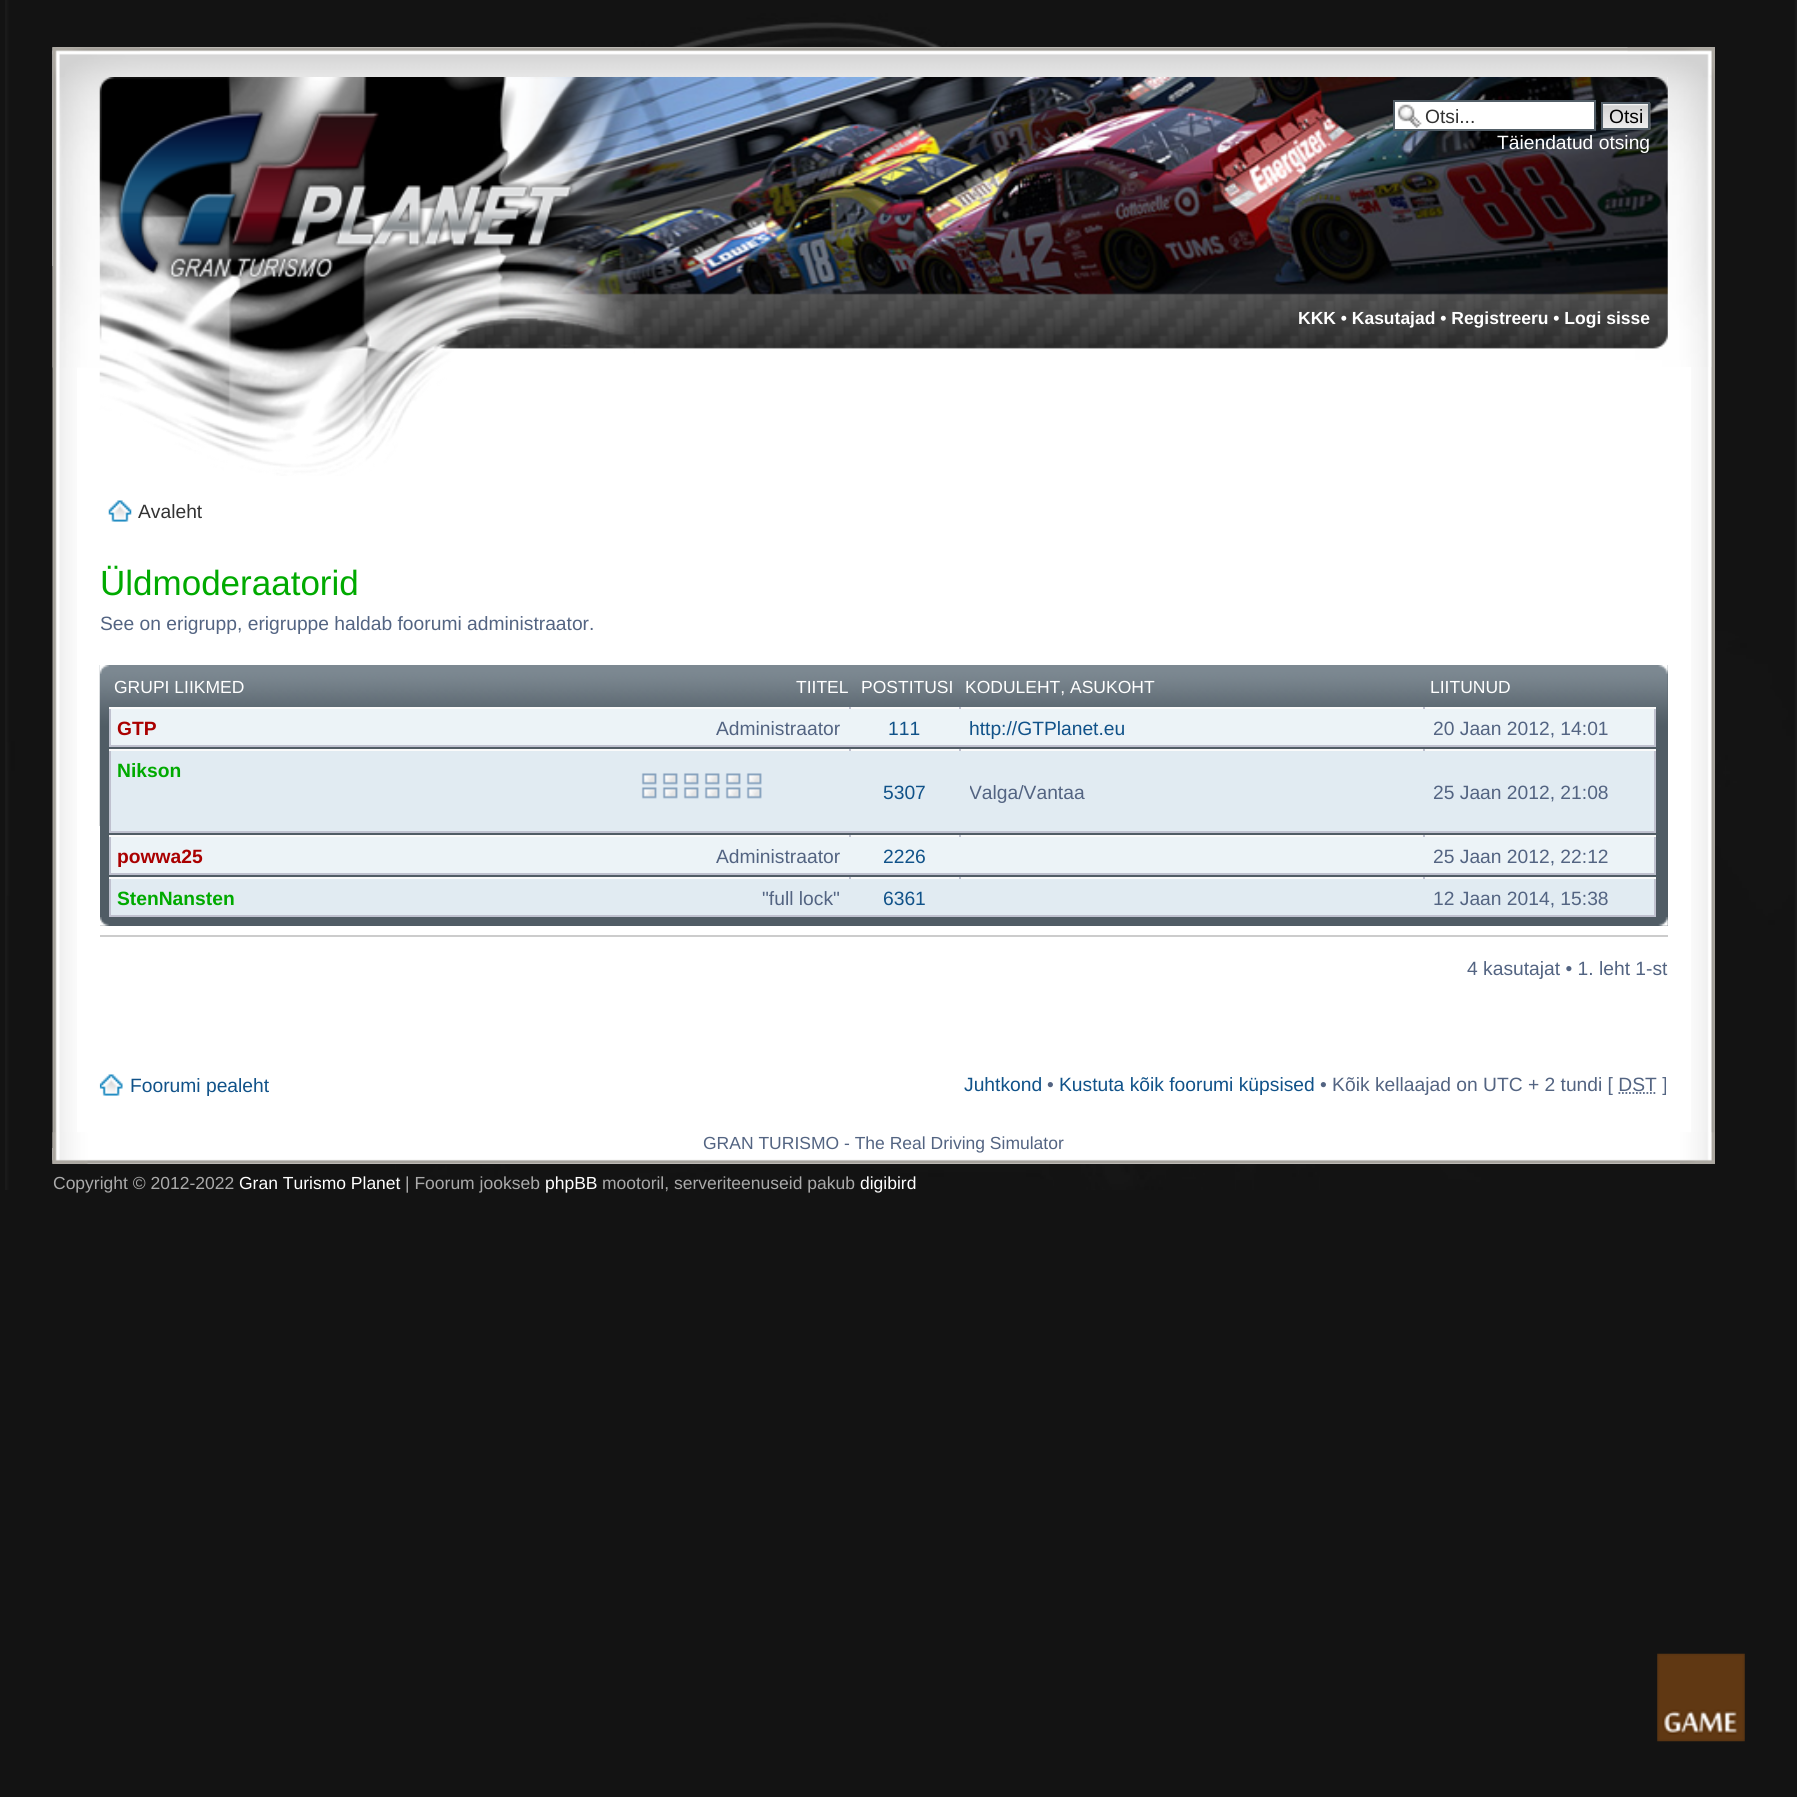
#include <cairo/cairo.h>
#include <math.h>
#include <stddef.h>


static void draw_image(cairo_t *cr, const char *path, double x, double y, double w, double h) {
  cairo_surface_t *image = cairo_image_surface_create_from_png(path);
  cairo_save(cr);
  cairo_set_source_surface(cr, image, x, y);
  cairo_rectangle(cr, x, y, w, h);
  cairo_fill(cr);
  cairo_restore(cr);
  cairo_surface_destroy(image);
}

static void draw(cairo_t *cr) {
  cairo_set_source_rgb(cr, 19 / 255.0, 19 / 255.0, 19 / 255.0);
  cairo_paint(cr);
  draw_image(cr, "images/1.png", 5, 0, 1792, 1190);
  cairo_set_source_rgb(cr, 1, 1, 1);
  cairo_rectangle(cr, 53, 47, 1662, 1117);
  cairo_fill(cr);
  draw_image(cr, "images/2.png", 52, 47, 25, 1117);
  draw_image(cr, "images/3.png", 1691, 47, 24, 1117);
  draw_image(cr, "images/4.png", 52, 47, 1663, 219);
  draw_image(cr, "images/5.png", 52, 47, 88, 321);
  draw_image(cr, "images/6.png", 1627, 47, 88, 320);
  cairo_rectangle(cr, 100, 77, 1568, 214);
  cairo_fill(cr);
  draw_image(cr, "images/9.png", 99, 77, 1569, 399);
  cairo_rectangle(cr, 1395, 102, 199, 27);
  cairo_fill(cr);
  draw_image(cr, "images/7.png", 1397, 104, 25, 24);
  cairo_rectangle(cr, 1394, 101, 201, 29);
  cairo_set_source_rgb(cr, 82 / 255.0, 94 / 255.0, 103 / 255.0);
  cairo_stroke(cr);
  draw_image(cr, "images/8.png", 1603, 103, 48, 27);
  cairo_rectangle(cr, 1602, 103, 47, 26);
  cairo_stroke(cr);
  draw_image(cr, "images/10.png", 108, 500, 24, 22);
  cairo_set_source_rgb(cr, 80 / 255.0, 92 / 255.0, 101 / 255.0);
  cairo_rectangle(cr, 100, 665, 1568, 261);
  cairo_fill(cr);
  draw_image(cr, "images/11.png", 99, 665, 1569, 161);
  draw_image(cr, "images/12.png", 99, 665, 10, 9);
  draw_image(cr, "images/13.png", 1658, 665, 10, 9);
  cairo_set_source_rgb(cr, 236 / 255.0, 243 / 255.0, 247 / 255.0);
  cairo_rectangle(cr, 110, 708, 1545, 38);
  cairo_fill_preserve(cr);
  cairo_set_source_rgb(cr, 191 / 255.0, 193 / 255.0, 207 / 255.0);
  cairo_stroke(cr);
  cairo_set_source_rgb(cr, 250 / 255.0, 250 / 255.0, 250 / 255.0);
  cairo_rectangle(cr, 109, 707, 740, 2);
  cairo_fill(cr);
  cairo_rectangle(cr, 851, 707, 108, 2);
  cairo_fill(cr);
  cairo_rectangle(cr, 961, 707, 462, 2);
  cairo_fill(cr);
  cairo_rectangle(cr, 1425, 707, 231, 2);
  cairo_fill(cr);
  cairo_set_source_rgb(cr, 225 / 255.0, 235 / 255.0, 242 / 255.0);
  cairo_rectangle(cr, 110, 750, 1545, 82);
  cairo_fill_preserve(cr);
  cairo_set_source_rgb(cr, 191 / 255.0, 193 / 255.0, 207 / 255.0);
  cairo_stroke(cr);
  cairo_set_source_rgb(cr, 250 / 255.0, 250 / 255.0, 250 / 255.0);
  cairo_rectangle(cr, 109, 749, 740, 2);
  cairo_fill(cr);
  draw_image(cr, "images/14.png", 641, 773, 121, 26);
  cairo_rectangle(cr, 851, 749, 108, 2);
  cairo_fill(cr);
  cairo_rectangle(cr, 961, 749, 462, 2);
  cairo_fill(cr);
  cairo_rectangle(cr, 1425, 749, 231, 2);
  cairo_fill(cr);
  cairo_set_source_rgb(cr, 236 / 255.0, 243 / 255.0, 247 / 255.0);
  cairo_rectangle(cr, 110, 836, 1545, 38);
  cairo_fill_preserve(cr);
  cairo_set_source_rgb(cr, 191 / 255.0, 193 / 255.0, 207 / 255.0);
  cairo_stroke(cr);
  cairo_set_source_rgb(cr, 250 / 255.0, 250 / 255.0, 250 / 255.0);
  cairo_rectangle(cr, 961, 835, 462, 2);
  cairo_fill(cr);
  cairo_rectangle(cr, 109, 835, 740, 2);
  cairo_fill(cr);
  cairo_rectangle(cr, 851, 835, 108, 2);
  cairo_fill(cr);
  cairo_rectangle(cr, 1425, 835, 231, 2);
  cairo_fill(cr);
  cairo_set_source_rgb(cr, 225 / 255.0, 235 / 255.0, 242 / 255.0);
  cairo_rectangle(cr, 110, 878, 1545, 38);
  cairo_fill_preserve(cr);
  cairo_set_source_rgb(cr, 191 / 255.0, 193 / 255.0, 207 / 255.0);
  cairo_stroke(cr);
  cairo_set_source_rgb(cr, 250 / 255.0, 250 / 255.0, 250 / 255.0);
  cairo_rectangle(cr, 961, 877, 462, 2);
  cairo_fill(cr);
  cairo_rectangle(cr, 109, 877, 740, 2);
  cairo_fill(cr);
  cairo_rectangle(cr, 851, 877, 108, 2);
  cairo_fill(cr);
  cairo_rectangle(cr, 1425, 877, 231, 2);
  cairo_fill(cr);
  draw_image(cr, "images/15.png", 100, 917, 9, 9);
  draw_image(cr, "images/16.png", 1658, 917, 10, 9);
  cairo_set_source_rgb(cr, 204 / 255.0, 204 / 255.0, 204 / 255.0);
  cairo_rectangle(cr, 100, 935, 1568, 2);
  cairo_fill(cr);
  draw_image(cr, "images/17.png", 99, 1074, 24, 22);
  cairo_new_path(cr);
  cairo_move_to(cr, 1618.5, 1093);
  cairo_line_to(cr, 1657, 1093);
  cairo_set_source_rgb(cr, 83 / 255.0, 100 / 255.0, 130 / 255.0);
  cairo_set_line_width(cr, 1.8);
  cairo_set_dash(cr, (double[]){1.75, 1.75}, 2, 0);
  cairo_stroke(cr);
  draw_image(cr, "images/18.png", 52, 1148, 1663, 16);
  draw_image(cr, "images/19.png", 52, 1132, 36, 32);
  draw_image(cr, "images/20.png", 1680, 1132, 35, 32);
  draw_image(cr, "images/21.png", 1657, 1653, 88, 89);
  cairo_select_font_face(cr, "Liberation Sans", CAIRO_FONT_SLANT_NORMAL, CAIRO_FONT_WEIGHT_NORMAL);
  cairo_set_font_size(cr, 19.25);
  cairo_set_source_rgb(cr, 51 / 255.0, 51 / 255.0, 51 / 255.0);
  cairo_move_to(cr, 1425, 123);
  cairo_show_text(cr, "Otsi...");
  cairo_set_source_rgb(cr, 0, 0, 0);
  cairo_move_to(cr, 1609, 123);
  cairo_show_text(cr, "Otsi");
  cairo_set_source_rgb(cr, 1, 1, 1);
  cairo_move_to(cr, 1497, 149);
  cairo_show_text(cr, "Täiendatud otsing");
  cairo_select_font_face(cr, "Liberation Sans", CAIRO_FONT_SLANT_NORMAL, CAIRO_FONT_WEIGHT_BOLD);
  cairo_set_font_size(cr, 17.5);
  cairo_move_to(cr, 1298, 324);
  cairo_show_text(cr, "KKK • Kasutajad • Registreeru • Logi sisse");
  cairo_select_font_face(cr, "Liberation Sans", CAIRO_FONT_SLANT_NORMAL, CAIRO_FONT_WEIGHT_NORMAL);
  cairo_set_font_size(cr, 19.25);
  cairo_set_source_rgb(cr, 51 / 255.0, 51 / 255.0, 51 / 255.0);
  cairo_move_to(cr, 138, 518);
  cairo_show_text(cr, "Avaleht");
  cairo_set_font_size(cr, 35);
  cairo_set_source_rgb(cr, 0, 170 / 255.0, 0);
  cairo_move_to(cr, 100, 595);
  cairo_show_text(cr, "Üldmoderaatorid");
  cairo_set_font_size(cr, 19.25);
  cairo_set_source_rgb(cr, 83 / 255.0, 100 / 255.0, 130 / 255.0);
  cairo_move_to(cr, 100, 630);
  cairo_show_text(cr, "See on erigrupp, erigruppe haldab foorumi administraator.");
  cairo_set_font_size(cr, 17.5);
  cairo_set_source_rgb(cr, 1, 1, 1);
  cairo_move_to(cr, 114, 693);
  cairo_show_text(cr, "GRUPI LIIKMED");
  cairo_move_to(cr, 796, 693);
  cairo_show_text(cr, "TIITEL");
  cairo_move_to(cr, 861, 693);
  cairo_show_text(cr, "POSTITUSI");
  cairo_move_to(cr, 965, 693);
  cairo_show_text(cr, "KODULEHT, ASUKOHT");
  cairo_move_to(cr, 1430, 693);
  cairo_show_text(cr, "LIITUNUD");
  cairo_select_font_face(cr, "Liberation Sans", CAIRO_FONT_SLANT_NORMAL, CAIRO_FONT_WEIGHT_BOLD);
  cairo_set_font_size(cr, 19.25);
  cairo_set_source_rgb(cr, 170 / 255.0, 0, 0);
  cairo_move_to(cr, 117, 735);
  cairo_show_text(cr, "GTP");
  cairo_select_font_face(cr, "Liberation Sans", CAIRO_FONT_SLANT_NORMAL, CAIRO_FONT_WEIGHT_NORMAL);
  cairo_set_source_rgb(cr, 83 / 255.0, 100 / 255.0, 130 / 255.0);
  cairo_move_to(cr, 716, 735);
  cairo_show_text(cr, "Administraator");
  cairo_set_source_rgb(cr, 16 / 255.0, 82 / 255.0, 137 / 255.0);
  cairo_move_to(cr, 888, 735);
  cairo_show_text(cr, "111");
  cairo_move_to(cr, 969, 735);
  cairo_show_text(cr, "http://GTPlanet.eu");
  cairo_set_source_rgb(cr, 83 / 255.0, 100 / 255.0, 130 / 255.0);
  cairo_move_to(cr, 1433, 735);
  cairo_show_text(cr, "20 Jaan 2012, 14:01");
  cairo_select_font_face(cr, "Liberation Sans", CAIRO_FONT_SLANT_NORMAL, CAIRO_FONT_WEIGHT_BOLD);
  cairo_set_source_rgb(cr, 0, 170 / 255.0, 0);
  cairo_move_to(cr, 117, 777);
  cairo_show_text(cr, "Nikson");
  cairo_select_font_face(cr, "Liberation Sans", CAIRO_FONT_SLANT_NORMAL, CAIRO_FONT_WEIGHT_NORMAL);
  cairo_set_source_rgb(cr, 16 / 255.0, 82 / 255.0, 137 / 255.0);
  cairo_move_to(cr, 883, 799);
  cairo_show_text(cr, "5307");
  cairo_save(cr);
  cairo_rectangle(cr, 970, 782, 444, 21);
  cairo_clip(cr);
  cairo_set_source_rgb(cr, 83 / 255.0, 100 / 255.0, 130 / 255.0);
  cairo_move_to(cr, 969, 799);
  cairo_show_text(cr, "Valga/Vantaa");
  cairo_restore(cr);
  cairo_set_source_rgb(cr, 83 / 255.0, 100 / 255.0, 130 / 255.0);
  cairo_move_to(cr, 1433, 799);
  cairo_show_text(cr, "25 Jaan 2012, 21:08");
  cairo_select_font_face(cr, "Liberation Sans", CAIRO_FONT_SLANT_NORMAL, CAIRO_FONT_WEIGHT_BOLD);
  cairo_set_source_rgb(cr, 170 / 255.0, 0, 0);
  cairo_move_to(cr, 117, 863);
  cairo_show_text(cr, "powwa25");
  cairo_select_font_face(cr, "Liberation Sans", CAIRO_FONT_SLANT_NORMAL, CAIRO_FONT_WEIGHT_NORMAL);
  cairo_set_source_rgb(cr, 83 / 255.0, 100 / 255.0, 130 / 255.0);
  cairo_move_to(cr, 716, 863);
  cairo_show_text(cr, "Administraator");
  cairo_set_source_rgb(cr, 16 / 255.0, 82 / 255.0, 137 / 255.0);
  cairo_move_to(cr, 883, 863);
  cairo_show_text(cr, "2226");
  cairo_set_source_rgb(cr, 83 / 255.0, 100 / 255.0, 130 / 255.0);
  cairo_move_to(cr, 1433, 863);
  cairo_show_text(cr, "25 Jaan 2012, 22:12");
  cairo_select_font_face(cr, "Liberation Sans", CAIRO_FONT_SLANT_NORMAL, CAIRO_FONT_WEIGHT_BOLD);
  cairo_set_source_rgb(cr, 0, 170 / 255.0, 0);
  cairo_move_to(cr, 117, 905);
  cairo_show_text(cr, "StenNansten");
  cairo_select_font_face(cr, "Liberation Sans", CAIRO_FONT_SLANT_NORMAL, CAIRO_FONT_WEIGHT_NORMAL);
  cairo_set_source_rgb(cr, 83 / 255.0, 100 / 255.0, 130 / 255.0);
  cairo_move_to(cr, 762, 905);
  cairo_show_text(cr, "\"full lock\"");
  cairo_set_source_rgb(cr, 16 / 255.0, 82 / 255.0, 137 / 255.0);
  cairo_move_to(cr, 883, 905);
  cairo_show_text(cr, "6361");
  cairo_set_source_rgb(cr, 83 / 255.0, 100 / 255.0, 130 / 255.0);
  cairo_move_to(cr, 1433, 905);
  cairo_show_text(cr, "12 Jaan 2014, 15:38");
  cairo_move_to(cr, 1467, 975);
  cairo_show_text(cr, "4 kasutajat • 1. leht 1-st");
  cairo_set_source_rgb(cr, 16 / 255.0, 82 / 255.0, 137 / 255.0);
  cairo_move_to(cr, 130, 1092);
  cairo_show_text(cr, "Foorumi pealeht");
  cairo_move_to(cr, 964, 1091);
  cairo_show_text(cr, "Juhtkond");
  cairo_set_source_rgb(cr, 83 / 255.0, 100 / 255.0, 130 / 255.0);
  cairo_move_to(cr, 1047, 1091);
  cairo_show_text(cr, "•");
  cairo_set_source_rgb(cr, 16 / 255.0, 82 / 255.0, 137 / 255.0);
  cairo_move_to(cr, 1059, 1091);
  cairo_show_text(cr, "Kustuta kõik foorumi küpsised");
  cairo_set_source_rgb(cr, 83 / 255.0, 100 / 255.0, 130 / 255.0);
  cairo_move_to(cr, 1320, 1091);
  cairo_show_text(cr, "• Kõik kellaajad on UTC + 2 tundi [ DST ]");
  cairo_set_font_size(cr, 17.5);
  cairo_move_to(cr, 703, 1149);
  cairo_show_text(cr, "GRAN TURISMO - The Real Driving Simulator");
  cairo_set_source_rgb(cr, 170 / 255.0, 170 / 255.0, 170 / 255.0);
  cairo_move_to(cr, 53, 1189);
  cairo_show_text(cr, "Copyright © 2012-2022");
  cairo_set_source_rgb(cr, 1, 1, 1);
  cairo_move_to(cr, 239, 1189);
  cairo_show_text(cr, "Gran Turismo Planet");
  cairo_set_source_rgb(cr, 170 / 255.0, 170 / 255.0, 170 / 255.0);
  cairo_move_to(cr, 405, 1189);
  cairo_show_text(cr, "| Foorum jookseb");
  cairo_set_source_rgb(cr, 1, 1, 1);
  cairo_move_to(cr, 545, 1189);
  cairo_show_text(cr, "phpBB");
  cairo_set_source_rgb(cr, 170 / 255.0, 170 / 255.0, 170 / 255.0);
  cairo_move_to(cr, 602, 1189);
  cairo_show_text(cr, "mootoril, serveriteenuseid pakub");
  cairo_set_source_rgb(cr, 1, 1, 1);
  cairo_move_to(cr, 860, 1189);
  cairo_show_text(cr, "digibird");
}

int main(void) {
  cairo_surface_t *surface = cairo_image_surface_create(CAIRO_FORMAT_RGB24, 1797, 1797);
  cairo_t *cr = cairo_create(surface);
  cairo_font_options_t *options = cairo_font_options_create();
  cairo_font_options_set_hint_metrics(options, CAIRO_HINT_METRICS_OFF);
  cairo_font_options_set_hint_style(options, CAIRO_HINT_STYLE_NONE);
  cairo_set_font_options(cr, options);
  cairo_set_miter_limit(cr, 4);
  draw(cr);
  cairo_surface_write_to_png(surface, "out.png");
  cairo_font_options_destroy(options);
  cairo_destroy(cr);
  cairo_surface_destroy(surface);
  return 0;
}
